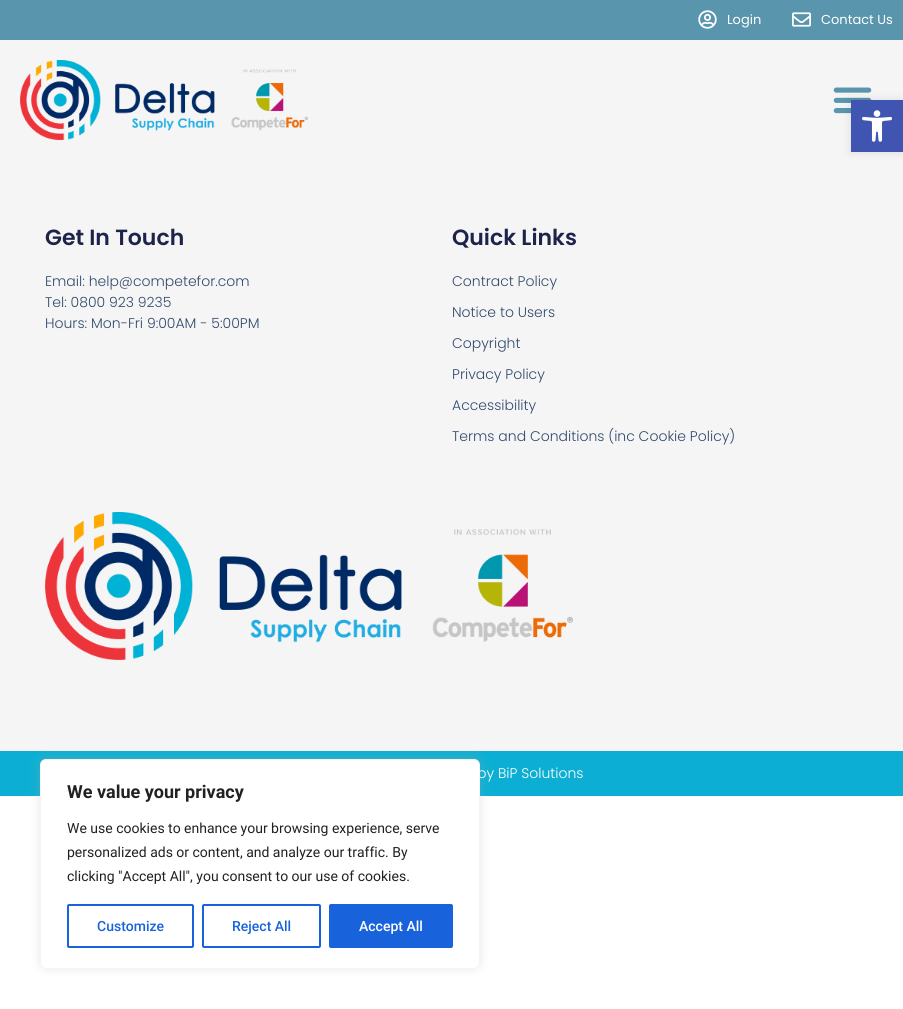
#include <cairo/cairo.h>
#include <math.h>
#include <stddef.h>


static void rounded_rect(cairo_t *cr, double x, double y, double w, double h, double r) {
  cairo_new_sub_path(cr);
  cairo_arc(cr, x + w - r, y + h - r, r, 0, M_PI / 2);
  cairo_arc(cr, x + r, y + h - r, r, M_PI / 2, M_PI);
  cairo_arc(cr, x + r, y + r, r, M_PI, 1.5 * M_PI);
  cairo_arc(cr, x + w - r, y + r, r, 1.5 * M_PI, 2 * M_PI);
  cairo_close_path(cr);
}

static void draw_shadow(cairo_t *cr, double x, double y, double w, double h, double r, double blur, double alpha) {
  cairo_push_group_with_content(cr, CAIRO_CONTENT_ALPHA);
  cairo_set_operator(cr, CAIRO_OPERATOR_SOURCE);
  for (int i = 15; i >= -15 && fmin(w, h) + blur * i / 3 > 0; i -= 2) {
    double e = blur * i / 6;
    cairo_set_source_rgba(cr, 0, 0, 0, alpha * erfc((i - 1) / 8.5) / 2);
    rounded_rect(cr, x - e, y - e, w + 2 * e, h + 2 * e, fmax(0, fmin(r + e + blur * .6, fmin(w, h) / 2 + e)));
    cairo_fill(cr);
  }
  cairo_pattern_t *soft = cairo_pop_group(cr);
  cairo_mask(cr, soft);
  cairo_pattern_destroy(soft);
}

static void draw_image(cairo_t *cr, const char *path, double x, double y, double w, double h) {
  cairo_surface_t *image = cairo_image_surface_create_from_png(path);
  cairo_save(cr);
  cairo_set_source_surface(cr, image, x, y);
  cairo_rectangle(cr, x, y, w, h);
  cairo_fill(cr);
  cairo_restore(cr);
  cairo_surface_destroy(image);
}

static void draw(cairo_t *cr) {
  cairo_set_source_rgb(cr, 1, 1, 1);
  cairo_paint(cr);
  cairo_set_source_rgb(cr, 89 / 255.0, 149 / 255.0, 172 / 255.0);
  cairo_rectangle(cr, 0, 0, 903, 40);
  cairo_fill(cr);
  draw_image(cr, "images/1.png", 698, 10, 19, 19);
  draw_image(cr, "images/2.png", 792, 12, 19, 15);
  cairo_set_source_rgb(cr, 245 / 255.0, 245 / 255.0, 245 / 255.0);
  cairo_rectangle(cr, 0, 40, 903, 711);
  cairo_fill(cr);
  draw_image(cr, "images/3.png", 20, 60, 288, 80);
  draw_image(cr, "images/4.png", 833, 87, 39, 27);
  cairo_set_source_rgb(cr, 0, 0, 0);
  draw_shadow(cr, 851, 100, 52, 52, 0, 5, 0.1);
  cairo_set_source_rgb(cr, 64 / 255.0, 84 / 255.0, 178 / 255.0);
  cairo_rectangle(cr, 851, 100, 52, 52);
  cairo_fill(cr);
  draw_image(cr, "images/5.png", 862, 110, 30, 32);
  draw_image(cr, "images/6.png", 45, 512, 528, 148);
  cairo_set_source_rgb(cr, 12 / 255.0, 175 / 255.0, 211 / 255.0);
  cairo_rectangle(cr, 0, 751, 903, 45);
  cairo_fill(cr);
  cairo_set_source_rgb(cr, 172 / 255.0, 171 / 255.0, 171 / 255.0);
  draw_shadow(cr, 40, 758, 440, 210, 6, 5, 0.3);
  cairo_set_source_rgb(cr, 1, 1, 1);
  rounded_rect(cr, 40.5, 759.5, 439, 209, 5.5);
  cairo_fill_preserve(cr);
  cairo_set_source_rgb(cr, 244 / 255.0, 244 / 255.0, 244 / 255.0);
  cairo_set_line_width(cr, 1);
  cairo_stroke(cr);
  rounded_rect(cr, 68, 905, 125, 42, 1);
  cairo_set_source_rgb(cr, 24 / 255.0, 99 / 255.0, 220 / 255.0);
  cairo_set_line_width(cr, 2);
  cairo_stroke(cr);
  rounded_rect(cr, 203, 905, 117, 42, 1);
  cairo_stroke(cr);
  rounded_rect(cr, 330, 905, 122, 42, 1);
  cairo_fill_preserve(cr);
  cairo_stroke(cr);
  cairo_select_font_face(cr, "Poppins", CAIRO_FONT_SLANT_NORMAL, CAIRO_FONT_WEIGHT_NORMAL);
  cairo_set_font_size(cr, 13);
  cairo_set_source_rgb(cr, 1, 1, 1);
  cairo_move_to(cr, 727, 24);
  cairo_show_text(cr, "Login");
  cairo_move_to(cr, 821, 24);
  cairo_show_text(cr, "Contact Us");
  cairo_select_font_face(cr, "Poppins SemiBold", CAIRO_FONT_SLANT_NORMAL, CAIRO_FONT_WEIGHT_NORMAL);
  cairo_set_font_size(cr, 22);
  cairo_set_source_rgb(cr, 28 / 255.0, 36 / 255.0, 75 / 255.0);
  cairo_move_to(cr, 45, 245);
  cairo_show_text(cr, "Get In Touch");
  cairo_select_font_face(cr, "Poppins Light", CAIRO_FONT_SLANT_NORMAL, CAIRO_FONT_WEIGHT_NORMAL);
  cairo_set_font_size(cr, 14);
  cairo_set_source_rgb(cr, 50 / 255.0, 74 / 255.0, 109 / 255.0);
  cairo_move_to(cr, 45, 286);
  cairo_show_text(cr, "Email: help@competefor.com");
  cairo_move_to(cr, 45, 307);
  cairo_show_text(cr, "Tel: 0800 923 9235");
  cairo_move_to(cr, 45, 328);
  cairo_show_text(cr, "Hours: Mon-Fri 9:00AM - 5:00PM");
  cairo_select_font_face(cr, "Poppins SemiBold", CAIRO_FONT_SLANT_NORMAL, CAIRO_FONT_WEIGHT_NORMAL);
  cairo_set_font_size(cr, 22);
  cairo_set_source_rgb(cr, 28 / 255.0, 36 / 255.0, 75 / 255.0);
  cairo_move_to(cr, 452, 245);
  cairo_show_text(cr, "Quick Links");
  cairo_select_font_face(cr, "Poppins Light", CAIRO_FONT_SLANT_NORMAL, CAIRO_FONT_WEIGHT_NORMAL);
  cairo_set_font_size(cr, 14);
  cairo_set_source_rgb(cr, 50 / 255.0, 74 / 255.0, 109 / 255.0);
  cairo_move_to(cr, 452, 286);
  cairo_show_text(cr, "Contract Policy");
  cairo_move_to(cr, 452, 317);
  cairo_show_text(cr, "Notice to Users");
  cairo_move_to(cr, 452, 348);
  cairo_show_text(cr, "Copyright");
  cairo_move_to(cr, 452, 379);
  cairo_show_text(cr, "Privacy Policy");
  cairo_move_to(cr, 452, 410);
  cairo_show_text(cr, "Accessibility");
  cairo_move_to(cr, 452, 441);
  cairo_show_text(cr, "Terms and Conditions (inc Cookie Policy)");
  cairo_set_source_rgb(cr, 1, 1, 1);
  cairo_move_to(cr, 477, 778);
  cairo_show_text(cr, "by BiP Solutions");
  cairo_select_font_face(cr, "Roboto", CAIRO_FONT_SLANT_NORMAL, CAIRO_FONT_WEIGHT_BOLD);
  cairo_set_font_size(cr, 18);
  cairo_set_source_rgb(cr, 33 / 255.0, 33 / 255.0, 33 / 255.0);
  cairo_move_to(cr, 67, 798);
  cairo_show_text(cr, "We value your privacy");
  cairo_select_font_face(cr, "Roboto", CAIRO_FONT_SLANT_NORMAL, CAIRO_FONT_WEIGHT_NORMAL);
  cairo_set_font_size(cr, 14);
  cairo_move_to(cr, 67, 833);
  cairo_show_text(cr, "We use cookies to enhance your browsing experience, serve");
  cairo_move_to(cr, 67, 857);
  cairo_show_text(cr, "personalized ads or content, and analyze our traffic. By");
  cairo_move_to(cr, 67, 881);
  cairo_show_text(cr, "clicking \"Accept All\", you consent to our use of cookies.");
  cairo_select_font_face(cr, "Roboto Medium", CAIRO_FONT_SLANT_NORMAL, CAIRO_FONT_WEIGHT_NORMAL);
  cairo_set_source_rgb(cr, 24 / 255.0, 99 / 255.0, 220 / 255.0);
  cairo_move_to(cr, 97, 931);
  cairo_show_text(cr, "Customize");
  cairo_move_to(cr, 232, 931);
  cairo_show_text(cr, "Reject All");
  cairo_set_source_rgb(cr, 1, 1, 1);
  cairo_move_to(cr, 359, 931);
  cairo_show_text(cr, "Accept All");
}

int main(void) {
  cairo_surface_t *surface = cairo_image_surface_create(CAIRO_FORMAT_RGB24, 903, 1009);
  cairo_t *cr = cairo_create(surface);
  cairo_font_options_t *options = cairo_font_options_create();
  cairo_font_options_set_hint_metrics(options, CAIRO_HINT_METRICS_OFF);
  cairo_font_options_set_hint_style(options, CAIRO_HINT_STYLE_NONE);
  cairo_set_font_options(cr, options);
  cairo_set_miter_limit(cr, 4);
  draw(cr);
  cairo_surface_write_to_png(surface, "out.png");
  cairo_font_options_destroy(options);
  cairo_destroy(cr);
  cairo_surface_destroy(surface);
  return 0;
}
